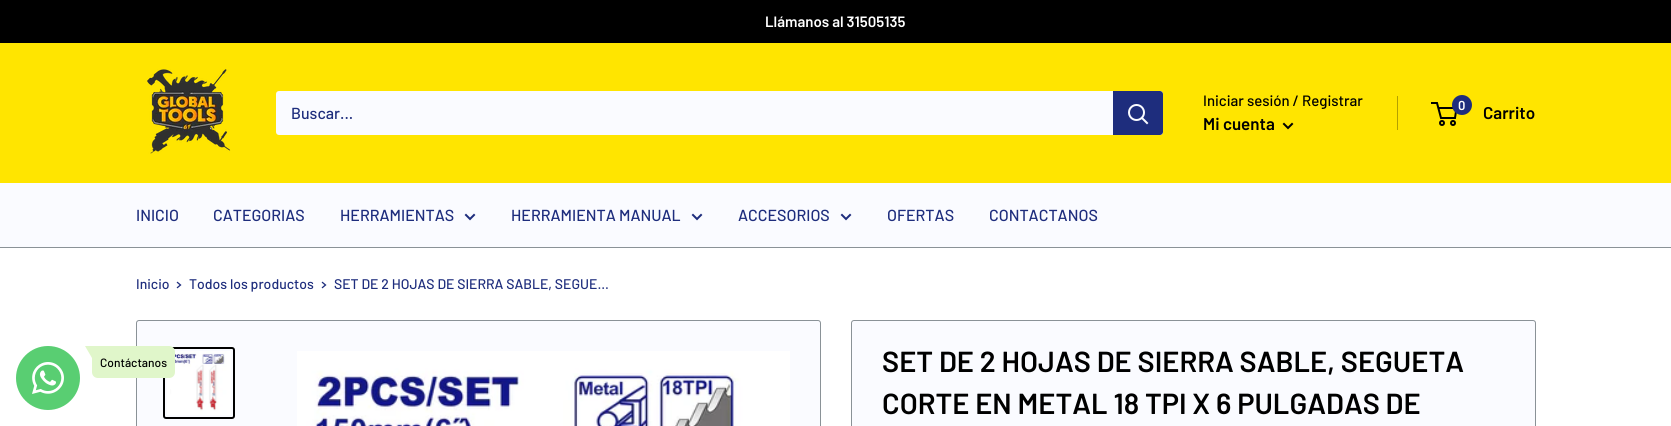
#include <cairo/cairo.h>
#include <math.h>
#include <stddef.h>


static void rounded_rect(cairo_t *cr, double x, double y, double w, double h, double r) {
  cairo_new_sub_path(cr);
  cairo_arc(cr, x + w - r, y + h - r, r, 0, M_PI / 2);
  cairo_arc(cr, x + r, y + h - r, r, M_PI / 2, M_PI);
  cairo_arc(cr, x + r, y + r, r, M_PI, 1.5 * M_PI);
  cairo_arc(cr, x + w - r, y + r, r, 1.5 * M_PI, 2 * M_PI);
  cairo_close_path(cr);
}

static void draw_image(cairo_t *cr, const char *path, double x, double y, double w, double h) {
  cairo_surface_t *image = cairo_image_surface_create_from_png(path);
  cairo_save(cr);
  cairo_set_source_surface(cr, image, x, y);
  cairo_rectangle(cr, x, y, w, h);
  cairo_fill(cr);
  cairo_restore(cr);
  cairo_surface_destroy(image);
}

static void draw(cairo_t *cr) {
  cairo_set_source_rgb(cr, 1, 1, 1);
  cairo_paint(cr);
  cairo_set_source_rgb(cr, 0, 0, 0);
  cairo_rectangle(cr, 0, 0, 1671, 43);
  cairo_fill(cr);
  cairo_set_source_rgb(cr, 1, 229 / 255.0, 0);
  cairo_rectangle(cr, 0, 43, 1671, 140);
  cairo_fill(cr);
  draw_image(cr, "images/1.png", 147, 69, 84, 85);
  cairo_set_source_rgb(cr, 250 / 255.0, 251 / 255.0, 1);
  rounded_rect(cr, 276, 91, 887, 44, 3);
  cairo_fill(cr);
  cairo_set_source_rgb(cr, 30 / 255.0, 45 / 255.0, 125 / 255.0);
  cairo_new_path(cr);
  cairo_move_to(cr, 1113, 91);
  cairo_line_to(cr, 1160, 91);
  cairo_curve_to(cr, 1161.5, 91, 1163, 92.5, 1163, 94);
  cairo_line_to(cr, 1163, 132);
  cairo_curve_to(cr, 1163, 133.5, 1161.5, 135, 1160, 135);
  cairo_line_to(cr, 1113, 135);
  cairo_close_path(cr);
  cairo_fill(cr);
  cairo_new_path(cr);
  cairo_move_to(cr, 1147, 123);
  cairo_line_to(cr, 1142, 118);
  cairo_set_source_rgb(cr, 250 / 255.0, 251 / 255.0, 1);
  cairo_set_line_cap(cr, CAIRO_LINE_CAP_SQUARE);
  cairo_stroke(cr);
  cairo_arc(cr, 1136.5, 112.5, 7.5, 0, 2 * M_PI);
  cairo_set_line_cap(cr, CAIRO_LINE_CAP_BUTT);
  cairo_stroke(cr);
  cairo_set_source_rgb(cr, 179 / 255.0, 160 / 255.0, 0);
  cairo_rectangle(cr, 1397, 96, 1, 34);
  cairo_fill(cr);
  cairo_new_path(cr);
  cairo_move_to(cr, 1292, 124);
  cairo_line_to(cr, 1288, 128);
  cairo_line_to(cr, 1284, 124);
  cairo_set_source_rgb(cr, 0, 0, 0);
  cairo_set_line_cap(cr, CAIRO_LINE_CAP_SQUARE);
  cairo_stroke(cr);
  cairo_arc(cr, 1442, 123, 2, 0, 2 * M_PI);
  cairo_set_line_cap(cr, CAIRO_LINE_CAP_BUTT);
  cairo_stroke(cr);
  cairo_arc(cr, 1453, 123, 2, 0, 2 * M_PI);
  cairo_stroke(cr);
  cairo_new_path(cr);
  cairo_move_to(cr, 1438.5, 108);
  cairo_line_to(cr, 1456.5, 108);
  cairo_line_to(cr, 1455, 118);
  cairo_line_to(cr, 1441, 118);
  cairo_line_to(cr, 1437, 103);
  cairo_line_to(cr, 1431, 103);
  cairo_stroke(cr);
  cairo_set_source_rgb(cr, 30 / 255.0, 45 / 255.0, 125 / 255.0);
  cairo_arc(cr, 1462, 105, 10, 0, 2 * M_PI);
  cairo_fill(cr);
  cairo_set_source_rgb(cr, 250 / 255.0, 251 / 255.0, 1);
  cairo_rectangle(cr, 0, 183, 1671, 64);
  cairo_fill(cr);
  cairo_set_source_rgb(cr, 138 / 255.0, 146 / 255.0, 151 / 255.0);
  cairo_rectangle(cr, 0, 247, 1671, 1);
  cairo_fill(cr);
  cairo_new_path(cr);
  cairo_move_to(cr, 474, 215);
  cairo_line_to(cr, 470, 219);
  cairo_line_to(cr, 466, 215);
  cairo_set_source_rgb(cr, 30 / 255.0, 45 / 255.0, 125 / 255.0);
  cairo_set_line_cap(cr, CAIRO_LINE_CAP_SQUARE);
  cairo_stroke(cr);
  cairo_new_path(cr);
  cairo_move_to(cr, 701, 215);
  cairo_line_to(cr, 697, 219);
  cairo_line_to(cr, 693, 215);
  cairo_stroke(cr);
  cairo_new_path(cr);
  cairo_move_to(cr, 850, 215);
  cairo_line_to(cr, 846, 219);
  cairo_line_to(cr, 842, 215);
  cairo_stroke(cr);
  cairo_set_source_rgb(cr, 89 / 255.0, 206 / 255.0, 114 / 255.0);
  cairo_arc(cr, 48, 378, 32, 0, 2 * M_PI);
  cairo_fill(cr);
  draw_image(cr, "images/2.png", 32, 362, 32, 32);
  cairo_set_source_rgb(cr, 250 / 255.0, 251 / 255.0, 1);
  rounded_rect(cr, 136.5, 320.5, 684, 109, 2.5);
  cairo_fill_preserve(cr);
  cairo_set_source_rgb(cr, 138 / 255.0, 146 / 255.0, 151 / 255.0);
  cairo_set_line_width(cr, 1);
  cairo_set_line_cap(cr, CAIRO_LINE_CAP_BUTT);
  cairo_stroke(cr);
  rounded_rect(cr, 164, 348, 70, 70, 2);
  cairo_set_source_rgb(cr, 0, 0, 0);
  cairo_set_line_width(cr, 2);
  cairo_stroke(cr);
  draw_image(cr, "images/3.png", 167, 351, 64, 64);
  cairo_set_source_rgb(cr, 224 / 255.0, 246 / 255.0, 202 / 255.0);
  cairo_new_path(cr);
  cairo_move_to(cr, 92, 346);
  cairo_line_to(cr, 169, 346);
  cairo_curve_to(cr, 172.5, 346, 175, 348.5, 175, 352);
  cairo_line_to(cr, 175, 372);
  cairo_curve_to(cr, 175, 375.5, 172.5, 378, 169, 378);
  cairo_line_to(cr, 98, 378);
  cairo_curve_to(cr, 94.5, 378, 92, 375.5, 92, 372);
  cairo_close_path(cr);
  cairo_fill(cr);
  cairo_new_path(cr);
  cairo_move_to(cr, 85, 346);
  cairo_line_to(cr, 92, 346);
  cairo_line_to(cr, 92, 358);
  cairo_close_path(cr);
  cairo_fill(cr);
  cairo_new_path(cr);
  cairo_move_to(cr, 177.5, 282.5);
  cairo_line_to(cr, 180.5, 285);
  cairo_line_to(cr, 177.5, 287.5);
  cairo_set_source_rgb(cr, 30 / 255.0, 45 / 255.0, 125 / 255.0);
  cairo_set_line_width(cr, 1.3);
  cairo_set_line_cap(cr, CAIRO_LINE_CAP_SQUARE);
  cairo_stroke(cr);
  cairo_new_path(cr);
  cairo_move_to(cr, 322.5, 282.5);
  cairo_line_to(cr, 325.5, 285);
  cairo_line_to(cr, 322.5, 287.5);
  cairo_stroke(cr);
  draw_image(cr, "images/4.png", 297, 351, 493, 75);
  cairo_set_source_rgb(cr, 250 / 255.0, 251 / 255.0, 1);
  rounded_rect(cr, 851.5, 320.5, 684, 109, 2.5);
  cairo_fill_preserve(cr);
  cairo_set_source_rgb(cr, 138 / 255.0, 146 / 255.0, 151 / 255.0);
  cairo_set_line_width(cr, 1);
  cairo_set_line_cap(cr, CAIRO_LINE_CAP_BUTT);
  cairo_stroke(cr);
  cairo_select_font_face(cr, "Barlow SemiBold", CAIRO_FONT_SLANT_NORMAL, CAIRO_FONT_WEIGHT_NORMAL);
  cairo_set_font_size(cr, 15);
  cairo_set_source_rgb(cr, 1, 1, 1);
  cairo_move_to(cr, 765, 27);
  cairo_show_text(cr, "Llámanos al 31505135");
  cairo_select_font_face(cr, "Barlow Medium", CAIRO_FONT_SLANT_NORMAL, CAIRO_FONT_WEIGHT_NORMAL);
  cairo_set_font_size(cr, 16);
  cairo_set_source_rgb(cr, 30 / 255.0, 45 / 255.0, 125 / 255.0);
  cairo_move_to(cr, 291, 119);
  cairo_show_text(cr, "Buscar...");
  cairo_set_font_size(cr, 15);
  cairo_set_source_rgb(cr, 0, 0, 0);
  cairo_move_to(cr, 1203, 106);
  cairo_show_text(cr, "Iniciar sesión / Registrar");
  cairo_select_font_face(cr, "Barlow SemiBold", CAIRO_FONT_SLANT_NORMAL, CAIRO_FONT_WEIGHT_NORMAL);
  cairo_set_font_size(cr, 17);
  cairo_move_to(cr, 1203, 130);
  cairo_show_text(cr, "Mi cuenta");
  cairo_set_font_size(cr, 13);
  cairo_set_source_rgb(cr, 1, 1, 1);
  cairo_move_to(cr, 1458, 110);
  cairo_show_text(cr, "0");
  cairo_set_font_size(cr, 17);
  cairo_set_source_rgb(cr, 0, 0, 0);
  cairo_move_to(cr, 1483, 119);
  cairo_show_text(cr, "Carrito");
  cairo_select_font_face(cr, "Barlow Medium", CAIRO_FONT_SLANT_NORMAL, CAIRO_FONT_WEIGHT_NORMAL);
  cairo_set_font_size(cr, 16);
  cairo_set_source_rgb(cr, 30 / 255.0, 45 / 255.0, 125 / 255.0);
  cairo_move_to(cr, 136, 221);
  cairo_show_text(cr, "INICIO");
  cairo_move_to(cr, 213, 221);
  cairo_show_text(cr, "CATEGORIAS");
  cairo_move_to(cr, 340, 221);
  cairo_show_text(cr, "HERRAMIENTAS");
  cairo_move_to(cr, 511, 221);
  cairo_show_text(cr, "HERRAMIENTA MANUAL");
  cairo_move_to(cr, 738, 221);
  cairo_show_text(cr, "ACCESORIOS");
  cairo_move_to(cr, 887, 221);
  cairo_show_text(cr, "OFERTAS");
  cairo_move_to(cr, 989, 221);
  cairo_show_text(cr, "CONTACTANOS");
  cairo_set_font_size(cr, 12);
  cairo_set_source_rgb(cr, 0, 0, 0);
  cairo_move_to(cr, 100, 367);
  cairo_show_text(cr, "Contáctanos");
  cairo_set_font_size(cr, 14);
  cairo_set_source_rgb(cr, 30 / 255.0, 45 / 255.0, 125 / 255.0);
  cairo_move_to(cr, 136, 289);
  cairo_show_text(cr, "Inicio");
  cairo_move_to(cr, 189, 289);
  cairo_show_text(cr, "Todos los productos");
  cairo_move_to(cr, 334, 289);
  cairo_show_text(cr, "SET DE 2 HOJAS DE SIERRA SABLE, SEGUE...");
  cairo_select_font_face(cr, "Barlow SemiBold", CAIRO_FONT_SLANT_NORMAL, CAIRO_FONT_WEIGHT_NORMAL);
  cairo_set_font_size(cr, 29);
  cairo_set_source_rgb(cr, 0, 0, 0);
  cairo_move_to(cr, 882, 372);
  cairo_show_text(cr, "SET DE 2 HOJAS DE SIERRA SABLE, SEGUETA");
  cairo_move_to(cr, 882, 414);
  cairo_show_text(cr, "CORTE EN METAL 18 TPI X 6 PULGADAS DE");
}

int main(void) {
  cairo_surface_t *surface = cairo_image_surface_create(CAIRO_FORMAT_RGB24, 1671, 426);
  cairo_t *cr = cairo_create(surface);
  cairo_font_options_t *options = cairo_font_options_create();
  cairo_font_options_set_hint_metrics(options, CAIRO_HINT_METRICS_OFF);
  cairo_font_options_set_hint_style(options, CAIRO_HINT_STYLE_NONE);
  cairo_set_font_options(cr, options);
  cairo_set_miter_limit(cr, 4);
  draw(cr);
  cairo_surface_write_to_png(surface, "out.png");
  cairo_font_options_destroy(options);
  cairo_destroy(cr);
  cairo_surface_destroy(surface);
  return 0;
}
